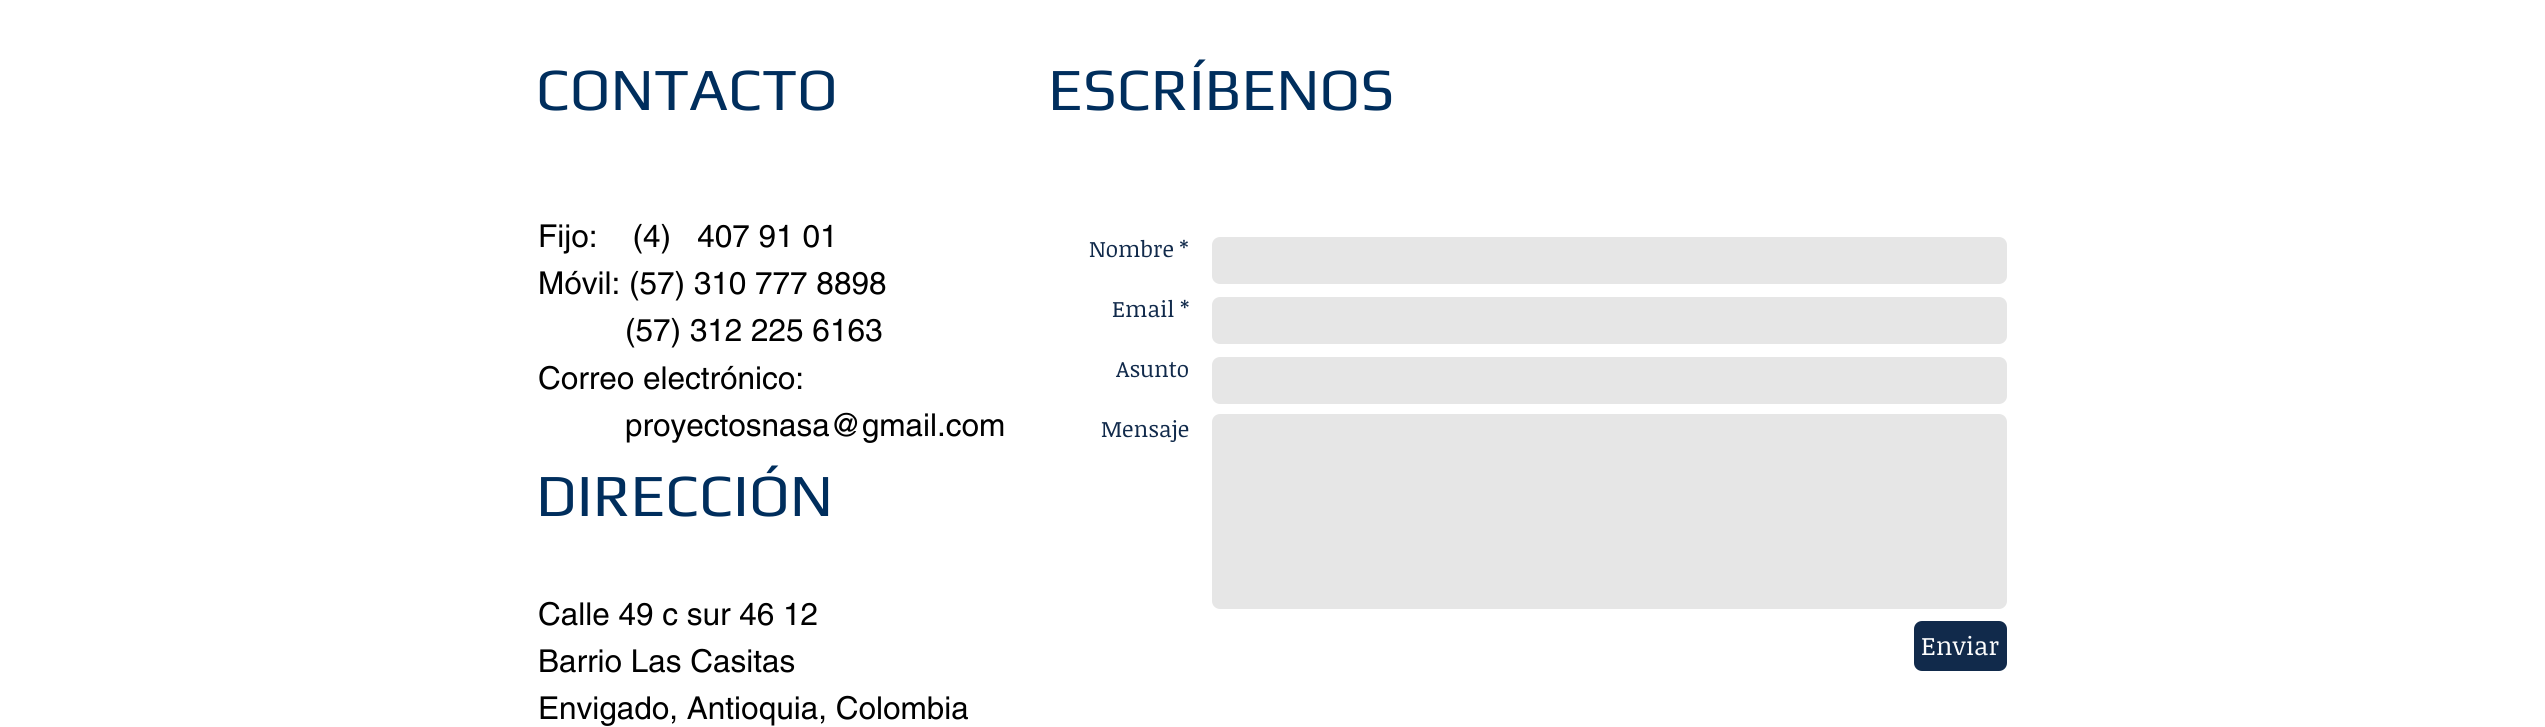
#include <cairo/cairo.h>
#include <math.h>
#include <stddef.h>


static void rounded_rect(cairo_t *cr, double x, double y, double w, double h, double r) {
  cairo_new_sub_path(cr);
  cairo_arc(cr, x + w - r, y + h - r, r, 0, M_PI / 2);
  cairo_arc(cr, x + r, y + h - r, r, M_PI / 2, M_PI);
  cairo_arc(cr, x + r, y + r, r, M_PI, 1.5 * M_PI);
  cairo_arc(cr, x + w - r, y + r, r, 1.5 * M_PI, 2 * M_PI);
  cairo_close_path(cr);
}

static void draw(cairo_t *cr) {
  cairo_set_source_rgb(cr, 1, 1, 1);
  cairo_paint(cr);
  cairo_set_source_rgb(cr, 230 / 255.0, 230 / 255.0, 230 / 255.0);
  rounded_rect(cr, 1212, 237, 795, 47, 8);
  cairo_fill(cr);
  rounded_rect(cr, 1212, 297, 795, 47, 8);
  cairo_fill(cr);
  rounded_rect(cr, 1212, 357, 795, 47, 8);
  cairo_fill(cr);
  rounded_rect(cr, 1212, 414, 795, 195, 8);
  cairo_fill(cr);
  cairo_set_source_rgb(cr, 17 / 255.0, 42 / 255.0, 75 / 255.0);
  rounded_rect(cr, 1914, 621, 93, 50, 8);
  cairo_fill(cr);
  cairo_select_font_face(cr, "Play", CAIRO_FONT_SLANT_NORMAL, CAIRO_FONT_WEIGHT_NORMAL);
  cairo_set_font_size(cr, 60);
  cairo_set_source_rgb(cr, 0, 46 / 255.0, 93 / 255.0);
  cairo_move_to(cr, 536, 110);
  cairo_show_text(cr, "CONTACTO");
  cairo_move_to(cr, 1048, 110);
  cairo_show_text(cr, "ESCRÍBENOS");
  cairo_select_font_face(cr, "helvetica", CAIRO_FONT_SLANT_NORMAL, CAIRO_FONT_WEIGHT_NORMAL);
  cairo_set_font_size(cr, 31.5);
  cairo_set_source_rgb(cr, 0, 0, 0);
  cairo_move_to(cr, 538, 247);
  cairo_show_text(cr, "Fijo:    (4)   407 91 01");
  cairo_move_to(cr, 538, 294);
  cairo_show_text(cr, "Móvil: (57) 310 777 8898");
  cairo_move_to(cr, 625, 341);
  cairo_show_text(cr, "(57) 312 225 6163");
  cairo_move_to(cr, 538, 389);
  cairo_show_text(cr, "Correo electrónico:");
  cairo_move_to(cr, 625, 436);
  cairo_show_text(cr, "proyectosnasa@gmail.com");
  cairo_move_to(cr, 538, 625);
  cairo_show_text(cr, "Calle 49 c sur 46 12");
  cairo_move_to(cr, 538, 672);
  cairo_show_text(cr, "Barrio Las Casitas");
  cairo_move_to(cr, 538, 719);
  cairo_show_text(cr, "Envigado, Antioquia, Colombia");
  cairo_select_font_face(cr, "Noticia Text", CAIRO_FONT_SLANT_NORMAL, CAIRO_FONT_WEIGHT_NORMAL);
  cairo_set_font_size(cr, 22.5);
  cairo_set_source_rgb(cr, 17 / 255.0, 42 / 255.0, 75 / 255.0);
  cairo_move_to(cr, 1089, 257);
  cairo_show_text(cr, "Nombre *");
  cairo_move_to(cr, 1112, 317);
  cairo_show_text(cr, "Email *");
  cairo_move_to(cr, 1116, 377);
  cairo_show_text(cr, "Asunto");
  cairo_move_to(cr, 1101, 437);
  cairo_show_text(cr, "Mensaje");
  cairo_set_font_size(cr, 25.5);
  cairo_set_source_rgb(cr, 252 / 255.0, 252 / 255.0, 252 / 255.0);
  cairo_move_to(cr, 1921, 655);
  cairo_show_text(cr, "Enviar");
  cairo_select_font_face(cr, "Play", CAIRO_FONT_SLANT_NORMAL, CAIRO_FONT_WEIGHT_NORMAL);
  cairo_set_font_size(cr, 60);
  cairo_set_source_rgb(cr, 0, 46 / 255.0, 93 / 255.0);
  cairo_move_to(cr, 536, 516);
  cairo_show_text(cr, "DIRECCIÓN");
}

int main(void) {
  cairo_surface_t *surface = cairo_image_surface_create(CAIRO_FORMAT_RGB24, 2545, 727);
  cairo_t *cr = cairo_create(surface);
  cairo_font_options_t *options = cairo_font_options_create();
  cairo_font_options_set_hint_metrics(options, CAIRO_HINT_METRICS_OFF);
  cairo_font_options_set_hint_style(options, CAIRO_HINT_STYLE_NONE);
  cairo_set_font_options(cr, options);
  cairo_set_miter_limit(cr, 4);
  draw(cr);
  cairo_surface_write_to_png(surface, "out.png");
  cairo_font_options_destroy(options);
  cairo_destroy(cr);
  cairo_surface_destroy(surface);
  return 0;
}
